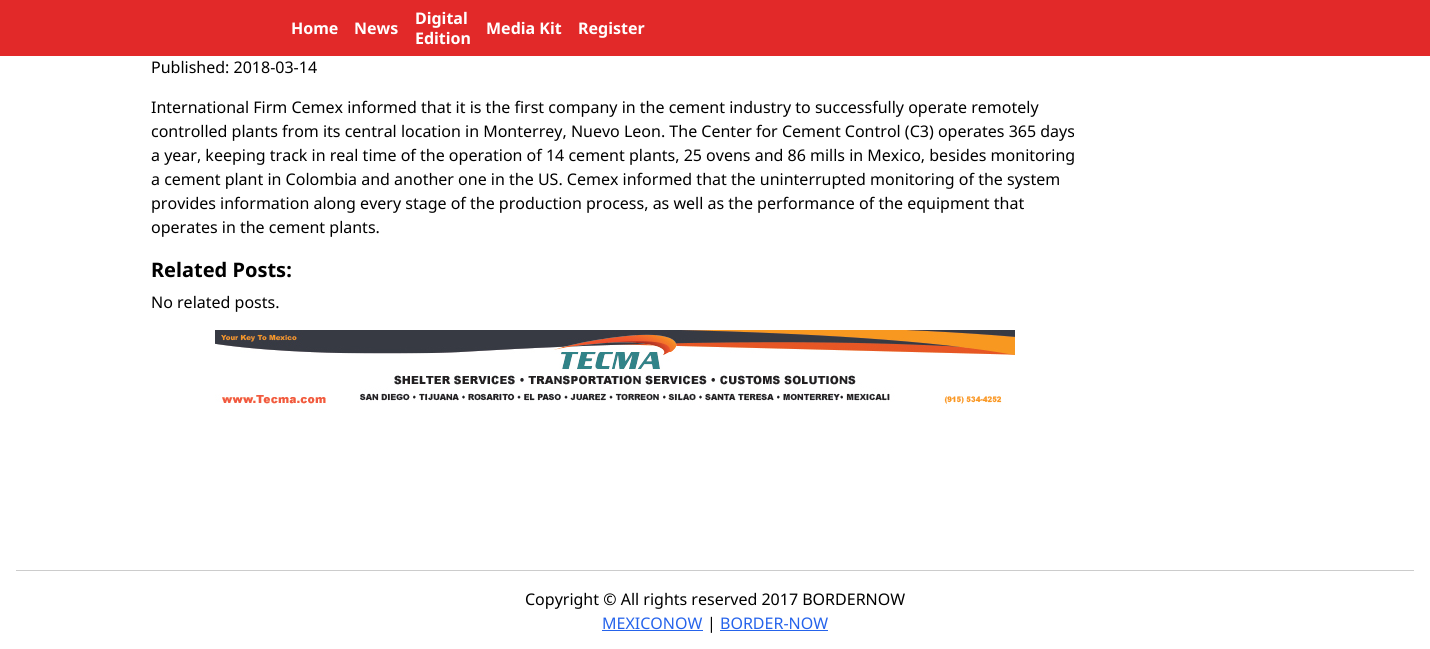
#include <cairo/cairo.h>
#include <math.h>
#include <stddef.h>


static void draw_image(cairo_t *cr, const char *path, double x, double y, double w, double h) {
  cairo_surface_t *image = cairo_image_surface_create_from_png(path);
  cairo_save(cr);
  cairo_set_source_surface(cr, image, x, y);
  cairo_rectangle(cr, x, y, w, h);
  cairo_fill(cr);
  cairo_restore(cr);
  cairo_surface_destroy(image);
}

static void draw(cairo_t *cr) {
  cairo_set_source_rgb(cr, 1, 1, 1);
  cairo_paint(cr);
  cairo_set_source_rgb(cr, 226 / 255.0, 41 / 255.0, 41 / 255.0);
  cairo_rectangle(cr, 0, 0, 1430, 56);
  cairo_fill(cr);
  draw_image(cr, "images/1.png", 215, 330, 800, 80);
  cairo_set_source_rgb(cr, 204 / 255.0, 204 / 255.0, 204 / 255.0);
  cairo_rectangle(cr, 16, 570, 1398, 1);
  cairo_fill(cr);
  cairo_set_source_rgb(cr, 37 / 255.0, 99 / 255.0, 235 / 255.0);
  cairo_rectangle(cr, 602, 630, 101, 1);
  cairo_fill(cr);
  cairo_rectangle(cr, 720, 630, 108, 1);
  cairo_fill(cr);
  cairo_select_font_face(cr, "Noto Sans", CAIRO_FONT_SLANT_NORMAL, CAIRO_FONT_WEIGHT_BOLD);
  cairo_set_font_size(cr, 16);
  cairo_set_source_rgb(cr, 1, 1, 1);
  cairo_move_to(cr, 291, 34);
  cairo_show_text(cr, "Home");
  cairo_move_to(cr, 354, 34);
  cairo_show_text(cr, "News");
  cairo_move_to(cr, 415, 24);
  cairo_show_text(cr, "Digital");
  cairo_move_to(cr, 415, 44);
  cairo_show_text(cr, "Edition");
  cairo_move_to(cr, 486, 34);
  cairo_show_text(cr, "Media Kit");
  cairo_move_to(cr, 578, 34);
  cairo_show_text(cr, "Register");
  cairo_select_font_face(cr, "Noto Sans", CAIRO_FONT_SLANT_NORMAL, CAIRO_FONT_WEIGHT_NORMAL);
  cairo_set_source_rgb(cr, 0, 0, 0);
  cairo_move_to(cr, 151, 73);
  cairo_show_text(cr, "Published: 2018-03-14");
  cairo_move_to(cr, 151, 113);
  cairo_show_text(cr, "International Firm Cemex informed that it is the first company in the cement industry to successfully operate remotely");
  cairo_move_to(cr, 151, 137);
  cairo_show_text(cr, "controlled plants from its central location in Monterrey, Nuevo Leon. The Center for Cement Control (C3) operates 365 days");
  cairo_move_to(cr, 151, 161);
  cairo_show_text(cr, "a year, keeping track in real time of the operation of 14 cement plants, 25 ovens and 86 mills in Mexico, besides monitoring");
  cairo_move_to(cr, 151, 185);
  cairo_show_text(cr, "a cement plant in Colombia and another one in the US. Cemex informed that the uninterrupted monitoring of the system");
  cairo_move_to(cr, 151, 209);
  cairo_show_text(cr, "provides information along every stage of the production process, as well as the performance of the equipment that");
  cairo_move_to(cr, 151, 233);
  cairo_show_text(cr, "operates in the cement plants.");
  cairo_select_font_face(cr, "Noto Sans", CAIRO_FONT_SLANT_NORMAL, CAIRO_FONT_WEIGHT_BOLD);
  cairo_set_font_size(cr, 20);
  cairo_move_to(cr, 151, 277);
  cairo_show_text(cr, "Related Posts:");
  cairo_select_font_face(cr, "Noto Sans", CAIRO_FONT_SLANT_NORMAL, CAIRO_FONT_WEIGHT_NORMAL);
  cairo_set_font_size(cr, 16);
  cairo_move_to(cr, 151, 308);
  cairo_show_text(cr, "No related posts.");
  cairo_move_to(cr, 525, 605);
  cairo_show_text(cr, "Copyright © All rights reserved 2017 BORDERNOW");
  cairo_set_source_rgb(cr, 37 / 255.0, 99 / 255.0, 235 / 255.0);
  cairo_move_to(cr, 602, 629);
  cairo_show_text(cr, "MEXICONOW");
  cairo_set_source_rgb(cr, 0, 0, 0);
  cairo_move_to(cr, 707, 629);
  cairo_show_text(cr, "|");
  cairo_set_source_rgb(cr, 37 / 255.0, 99 / 255.0, 235 / 255.0);
  cairo_move_to(cr, 720, 629);
  cairo_show_text(cr, "BORDER-NOW");
}

int main(void) {
  cairo_surface_t *surface = cairo_image_surface_create(CAIRO_FORMAT_RGB24, 1430, 649);
  cairo_t *cr = cairo_create(surface);
  cairo_font_options_t *options = cairo_font_options_create();
  cairo_font_options_set_hint_metrics(options, CAIRO_HINT_METRICS_OFF);
  cairo_font_options_set_hint_style(options, CAIRO_HINT_STYLE_NONE);
  cairo_set_font_options(cr, options);
  cairo_set_miter_limit(cr, 4);
  draw(cr);
  cairo_surface_write_to_png(surface, "out.png");
  cairo_font_options_destroy(options);
  cairo_destroy(cr);
  cairo_surface_destroy(surface);
  return 0;
}
